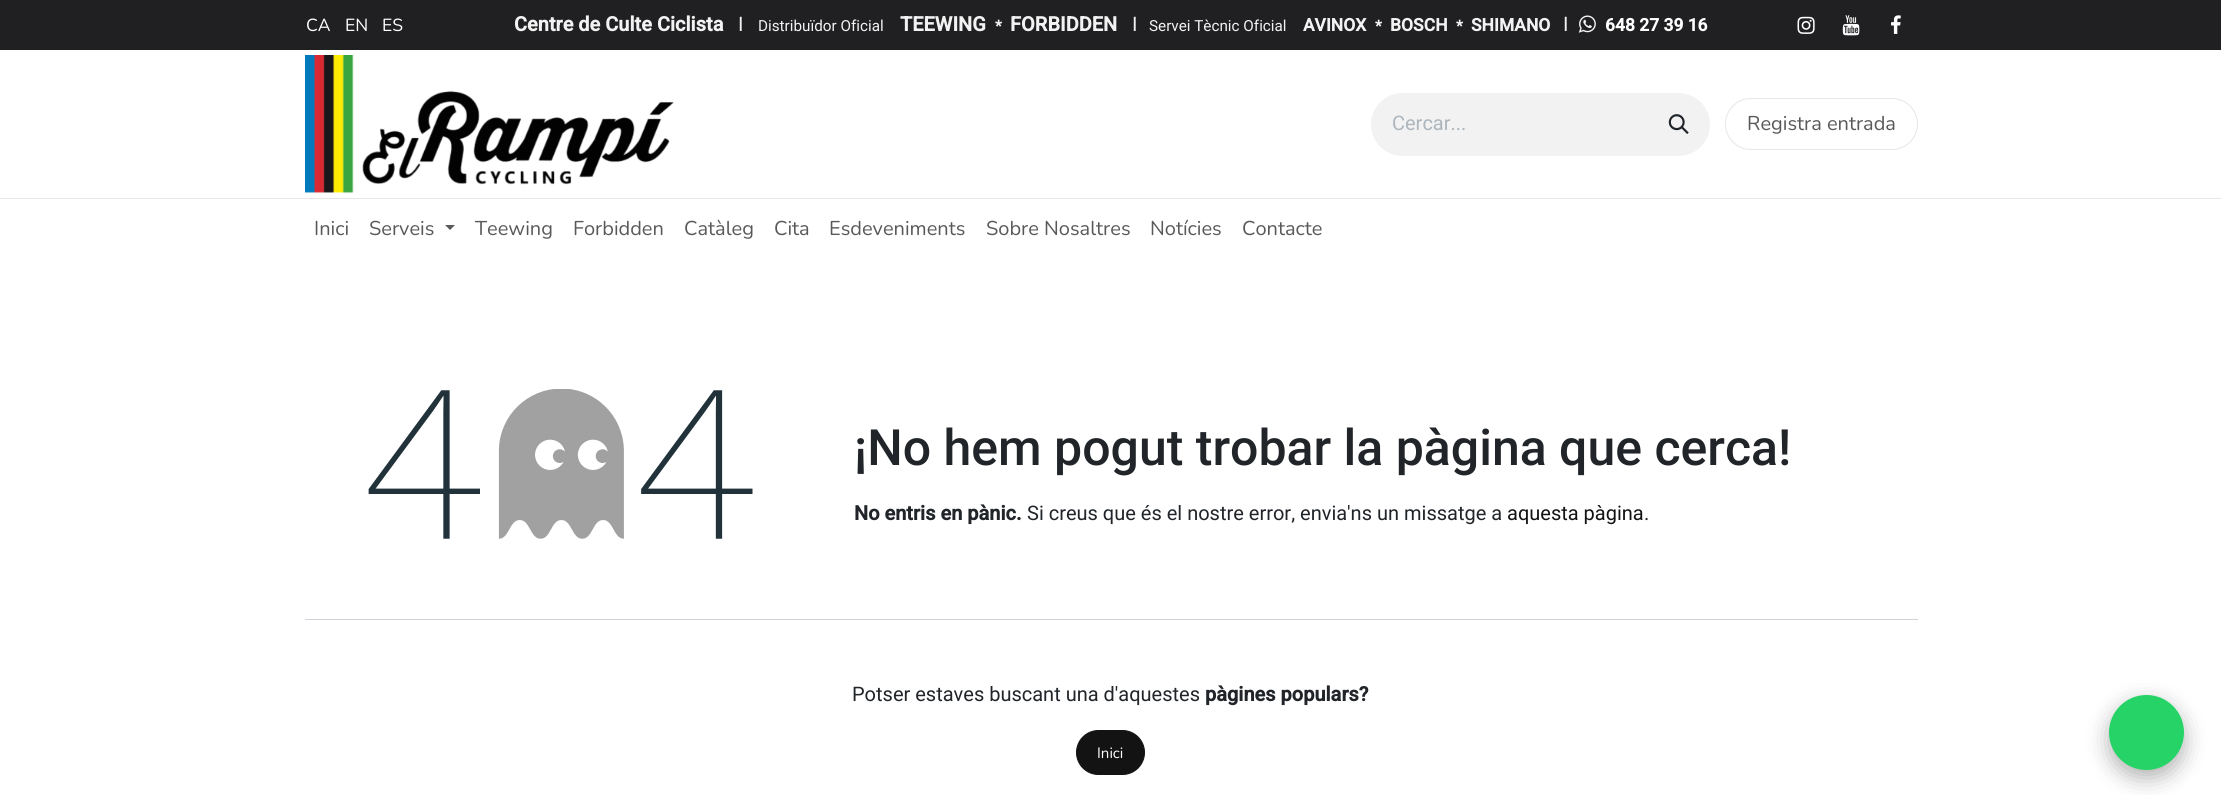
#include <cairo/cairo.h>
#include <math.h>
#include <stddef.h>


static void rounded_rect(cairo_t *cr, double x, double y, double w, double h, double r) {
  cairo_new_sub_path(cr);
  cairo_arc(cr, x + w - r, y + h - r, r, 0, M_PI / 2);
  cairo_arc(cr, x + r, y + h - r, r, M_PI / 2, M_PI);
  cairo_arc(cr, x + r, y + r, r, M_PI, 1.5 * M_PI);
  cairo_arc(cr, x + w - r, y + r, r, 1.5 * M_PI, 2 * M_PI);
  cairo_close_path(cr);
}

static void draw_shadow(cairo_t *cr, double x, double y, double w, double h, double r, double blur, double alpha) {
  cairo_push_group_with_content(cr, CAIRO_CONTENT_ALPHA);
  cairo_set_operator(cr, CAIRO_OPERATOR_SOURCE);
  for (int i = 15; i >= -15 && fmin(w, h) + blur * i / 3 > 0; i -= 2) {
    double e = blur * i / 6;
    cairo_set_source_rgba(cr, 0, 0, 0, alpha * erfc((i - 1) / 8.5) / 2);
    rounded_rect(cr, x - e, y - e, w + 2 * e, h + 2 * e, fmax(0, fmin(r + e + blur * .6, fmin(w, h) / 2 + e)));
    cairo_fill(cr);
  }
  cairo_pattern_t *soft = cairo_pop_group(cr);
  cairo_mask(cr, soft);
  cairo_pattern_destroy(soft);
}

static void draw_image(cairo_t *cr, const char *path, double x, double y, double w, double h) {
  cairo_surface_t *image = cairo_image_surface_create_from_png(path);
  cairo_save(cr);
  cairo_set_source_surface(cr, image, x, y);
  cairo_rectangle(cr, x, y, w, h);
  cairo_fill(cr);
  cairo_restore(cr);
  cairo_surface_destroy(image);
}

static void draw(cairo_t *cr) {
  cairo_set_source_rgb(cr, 1, 1, 1);
  cairo_paint(cr);
  cairo_set_source_rgb(cr, 32 / 255.0, 32 / 255.0, 34 / 255.0);
  cairo_rectangle(cr, 0, 0, 2221, 50);
  cairo_fill(cr);
  draw_image(cr, "images/1.png", 1578, 15, 18, 18);
  draw_image(cr, "images/2.png", 1797, 16, 18, 18);
  draw_image(cr, "images/3.png", 1842, 15, 18, 21);
  draw_image(cr, "images/4.png", 1891, 15, 10, 19);
  draw_image(cr, "images/5.png", 305, 55, 369, 138);
  cairo_set_source_rgb(cr, 242 / 255.0, 242 / 255.0, 243 / 255.0);
  cairo_new_path(cr);
  cairo_move_to(cr, 1402.5, 93);
  cairo_line_to(cr, 1649, 93);
  cairo_line_to(cr, 1649, 156);
  cairo_line_to(cr, 1402.5, 156);
  cairo_curve_to(cr, 1385, 156, 1371, 142, 1371, 124.5);
  cairo_curve_to(cr, 1371, 107, 1385, 93, 1402.5, 93);
  cairo_close_path(cr);
  cairo_fill(cr);
  cairo_new_path(cr);
  cairo_move_to(cr, 1648, 93);
  cairo_line_to(cr, 1678.5, 93);
  cairo_curve_to(cr, 1696, 93, 1710, 107, 1710, 124.5);
  cairo_curve_to(cr, 1710, 142, 1696, 156, 1678.5, 156);
  cairo_line_to(cr, 1648, 156);
  cairo_close_path(cr);
  cairo_fill(cr);
  draw_image(cr, "images/6.png", 1668, 114, 21, 20);
  rounded_rect(cr, 1725.5, 98.5, 192, 51, 25.5);
  cairo_set_source_rgb(cr, 230 / 255.0, 230 / 255.0, 230 / 255.0);
  cairo_set_line_width(cr, 1);
  cairo_stroke(cr);
  cairo_rectangle(cr, 0, 198, 2221, 1);
  cairo_fill(cr);
  cairo_set_source_rgb(cr, 89 / 255.0, 89 / 255.0, 89 / 255.0);
  cairo_new_path(cr);
  cairo_move_to(cr, 445, 225);
  cairo_line_to(cr, 455, 225);
  cairo_line_to(cr, 450, 230);
  cairo_close_path(cr);
  cairo_fill(cr);
  draw_image(cr, "images/7.png", 368, 389, 385, 150);
  cairo_set_source_rgb(cr, 206 / 255.0, 212 / 255.0, 218 / 255.0);
  cairo_rectangle(cr, 305, 619, 1613, 1);
  cairo_fill(cr);
  cairo_set_source_rgb(cr, 19 / 255.0, 19 / 255.0, 20 / 255.0);
  rounded_rect(cr, 1076.5, 730.5, 68, 44, 22);
  cairo_fill_preserve(cr);
  cairo_stroke(cr);
  cairo_set_source_rgb(cr, 0, 0, 0);
  draw_shadow(cr, 2109, 703, 75, 75, 37.5, 11, 0.3);
  cairo_set_source_rgb(cr, 37 / 255.0, 211 / 255.0, 102 / 255.0);
  cairo_arc(cr, 2146.5, 732.5, 37.5, 0, 2 * M_PI);
  cairo_fill(cr);
  cairo_select_font_face(cr, "Nunito", CAIRO_FONT_SLANT_NORMAL, CAIRO_FONT_WEIGHT_NORMAL);
  cairo_set_font_size(cr, 17.5);
  cairo_set_source_rgb(cr, 1, 1, 1);
  cairo_move_to(cr, 306, 31);
  cairo_show_text(cr, "CA");
  cairo_move_to(cr, 345, 31);
  cairo_show_text(cr, "EN");
  cairo_move_to(cr, 382, 31);
  cairo_show_text(cr, "ES");
  cairo_select_font_face(cr, "Roboto", CAIRO_FONT_SLANT_NORMAL, CAIRO_FONT_WEIGHT_BOLD);
  cairo_set_font_size(cr, 20);
  cairo_set_source_rgb(cr, 242 / 255.0, 242 / 255.0, 243 / 255.0);
  cairo_move_to(cr, 514, 31);
  cairo_show_text(cr, "Centre de Culte Ciclista");
  cairo_select_font_face(cr, "Roboto", CAIRO_FONT_SLANT_NORMAL, CAIRO_FONT_WEIGHT_NORMAL);
  cairo_move_to(cr, 738, 31);
  cairo_show_text(cr, "I");
  cairo_set_font_size(cr, 15.25);
  cairo_move_to(cr, 758, 31);
  cairo_show_text(cr, "Distribuïdor Oficial");
  cairo_select_font_face(cr, "Roboto", CAIRO_FONT_SLANT_NORMAL, CAIRO_FONT_WEIGHT_BOLD);
  cairo_set_font_size(cr, 20);
  cairo_move_to(cr, 900, 31);
  cairo_show_text(cr, "TEEWING");
  cairo_set_font_size(cr, 15.25);
  cairo_move_to(cr, 995, 31);
  cairo_show_text(cr, "*");
  cairo_set_font_size(cr, 20);
  cairo_move_to(cr, 1010, 31);
  cairo_show_text(cr, "FORBIDDEN");
  cairo_select_font_face(cr, "Roboto", CAIRO_FONT_SLANT_NORMAL, CAIRO_FONT_WEIGHT_NORMAL);
  cairo_move_to(cr, 1132, 31);
  cairo_show_text(cr, "I");
  cairo_set_font_size(cr, 15.25);
  cairo_move_to(cr, 1149, 31);
  cairo_show_text(cr, "Servei Tècnic Oficial");
  cairo_select_font_face(cr, "Roboto", CAIRO_FONT_SLANT_NORMAL, CAIRO_FONT_WEIGHT_BOLD);
  cairo_set_font_size(cr, 17.5);
  cairo_move_to(cr, 1303, 31);
  cairo_show_text(cr, "AVINOX");
  cairo_set_font_size(cr, 15.25);
  cairo_move_to(cr, 1375, 31);
  cairo_show_text(cr, "*");
  cairo_set_font_size(cr, 17.5);
  cairo_move_to(cr, 1390, 31);
  cairo_show_text(cr, "BOSCH");
  cairo_set_font_size(cr, 15.25);
  cairo_move_to(cr, 1456, 31);
  cairo_show_text(cr, "*");
  cairo_set_font_size(cr, 17.5);
  cairo_move_to(cr, 1471, 31);
  cairo_show_text(cr, "SHIMANO");
  cairo_select_font_face(cr, "Roboto", CAIRO_FONT_SLANT_NORMAL, CAIRO_FONT_WEIGHT_NORMAL);
  cairo_set_font_size(cr, 20);
  cairo_move_to(cr, 1563, 31);
  cairo_show_text(cr, "I");
  cairo_select_font_face(cr, "Roboto", CAIRO_FONT_SLANT_NORMAL, CAIRO_FONT_WEIGHT_BOLD);
  cairo_set_font_size(cr, 17.5);
  cairo_set_source_rgb(cr, 1, 1, 1);
  cairo_move_to(cr, 1605, 31);
  cairo_show_text(cr, "648 27 39 16");
  cairo_select_font_face(cr, "Roboto", CAIRO_FONT_SLANT_NORMAL, CAIRO_FONT_WEIGHT_NORMAL);
  cairo_set_font_size(cr, 20);
  cairo_set_source_rgb(cr, 173 / 255.0, 181 / 255.0, 189 / 255.0);
  cairo_move_to(cr, 1392, 130);
  cairo_show_text(cr, "Cercar...");
  cairo_select_font_face(cr, "Nunito", CAIRO_FONT_SLANT_NORMAL, CAIRO_FONT_WEIGHT_NORMAL);
  cairo_set_source_rgb(cr, 89 / 255.0, 89 / 255.0, 89 / 255.0);
  cairo_move_to(cr, 1747, 130);
  cairo_show_text(cr, "Registra entrada");
  cairo_move_to(cr, 314, 235);
  cairo_show_text(cr, "Inici");
  cairo_move_to(cr, 369, 235);
  cairo_show_text(cr, "Serveis");
  cairo_move_to(cr, 475, 235);
  cairo_show_text(cr, "Teewing");
  cairo_move_to(cr, 573, 235);
  cairo_show_text(cr, "Forbidden");
  cairo_move_to(cr, 684, 235);
  cairo_show_text(cr, "Catàleg");
  cairo_move_to(cr, 774, 235);
  cairo_show_text(cr, "Cita");
  cairo_move_to(cr, 829, 235);
  cairo_show_text(cr, "Esdeveniments");
  cairo_move_to(cr, 986, 235);
  cairo_show_text(cr, "Sobre Nosaltres");
  cairo_move_to(cr, 1150, 235);
  cairo_show_text(cr, "Notícies");
  cairo_move_to(cr, 1242, 235);
  cairo_show_text(cr, "Contacte");
  cairo_select_font_face(cr, "Roboto Medium", CAIRO_FONT_SLANT_NORMAL, CAIRO_FONT_WEIGHT_NORMAL);
  cairo_set_font_size(cr, 50);
  cairo_set_source_rgb(cr, 33 / 255.0, 37 / 255.0, 41 / 255.0);
  cairo_move_to(cr, 854, 465);
  cairo_show_text(cr, "¡No hem pogut trobar la pàgina que cerca!");
  cairo_select_font_face(cr, "Roboto", CAIRO_FONT_SLANT_NORMAL, CAIRO_FONT_WEIGHT_BOLD);
  cairo_set_font_size(cr, 20);
  cairo_move_to(cr, 854, 520);
  cairo_show_text(cr, "No entris en pànic.");
  cairo_select_font_face(cr, "Roboto", CAIRO_FONT_SLANT_NORMAL, CAIRO_FONT_WEIGHT_NORMAL);
  cairo_move_to(cr, 1027, 520);
  cairo_show_text(cr, "Si creus que és el nostre error, envia'ns un missatge a");
  cairo_set_source_rgb(cr, 19 / 255.0, 19 / 255.0, 20 / 255.0);
  cairo_move_to(cr, 1507, 520);
  cairo_show_text(cr, "aquesta pàgina");
  cairo_set_source_rgb(cr, 33 / 255.0, 37 / 255.0, 41 / 255.0);
  cairo_move_to(cr, 1644, 520);
  cairo_show_text(cr, ".");
  cairo_move_to(cr, 852, 701);
  cairo_show_text(cr, "Potser estaves buscant una d'aquestes");
  cairo_select_font_face(cr, "Roboto", CAIRO_FONT_SLANT_NORMAL, CAIRO_FONT_WEIGHT_BOLD);
  cairo_move_to(cr, 1205, 701);
  cairo_show_text(cr, "pàgines populars?");
  cairo_select_font_face(cr, "Nunito", CAIRO_FONT_SLANT_NORMAL, CAIRO_FONT_WEIGHT_NORMAL);
  cairo_set_font_size(cr, 15);
  cairo_set_source_rgb(cr, 1, 1, 1);
  cairo_move_to(cr, 1097, 758);
  cairo_show_text(cr, "Inici");
}

int main(void) {
  cairo_surface_t *surface = cairo_image_surface_create(CAIRO_FORMAT_RGB24, 2221, 795);
  cairo_t *cr = cairo_create(surface);
  cairo_font_options_t *options = cairo_font_options_create();
  cairo_font_options_set_hint_metrics(options, CAIRO_HINT_METRICS_OFF);
  cairo_font_options_set_hint_style(options, CAIRO_HINT_STYLE_NONE);
  cairo_set_font_options(cr, options);
  cairo_set_miter_limit(cr, 4);
  draw(cr);
  cairo_surface_write_to_png(surface, "out.png");
  cairo_font_options_destroy(options);
  cairo_destroy(cr);
  cairo_surface_destroy(surface);
  return 0;
}
